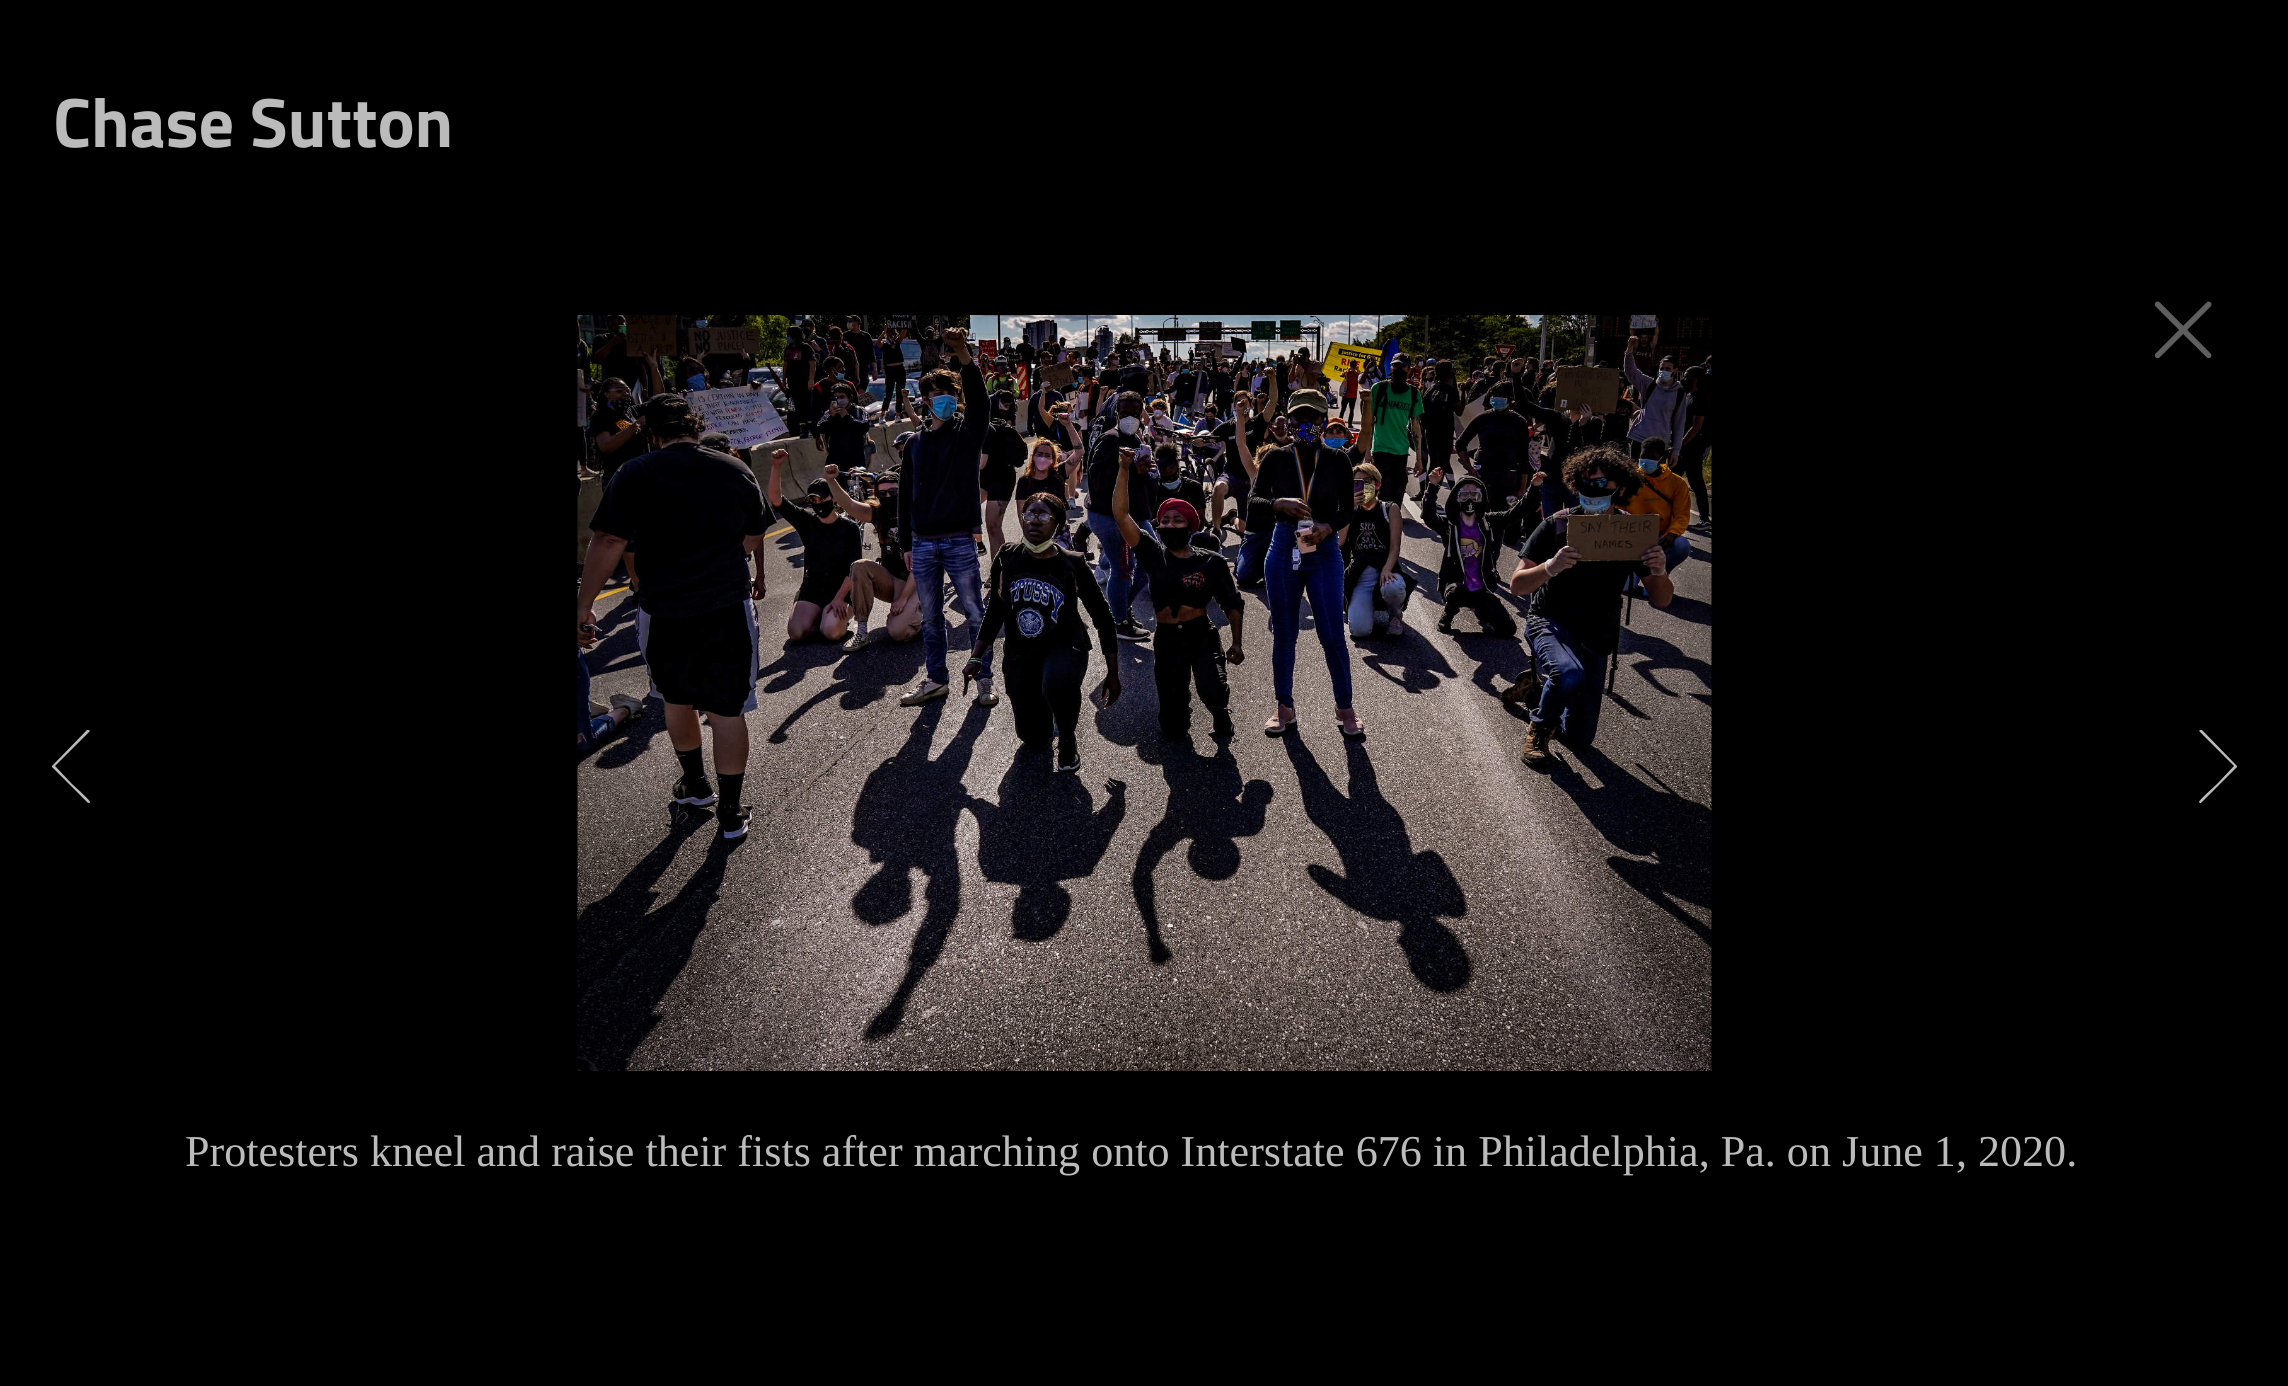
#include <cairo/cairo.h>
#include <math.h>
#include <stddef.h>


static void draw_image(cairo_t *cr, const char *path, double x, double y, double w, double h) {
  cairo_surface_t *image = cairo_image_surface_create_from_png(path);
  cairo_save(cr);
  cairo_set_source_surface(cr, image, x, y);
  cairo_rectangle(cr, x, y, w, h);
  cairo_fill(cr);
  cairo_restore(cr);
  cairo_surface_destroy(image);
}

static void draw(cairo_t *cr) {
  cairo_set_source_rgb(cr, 0, 0, 0);
  cairo_paint(cr);
  draw_image(cr, "images/1.png", 2154, 301, 58, 58);
  draw_image(cr, "images/2.png", 577, 315, 1135, 756);
  cairo_set_source_rgb(cr, 187 / 255.0, 187 / 255.0, 187 / 255.0);
  cairo_new_path(cr);
  cairo_move_to(cr, 52, 766);
  cairo_line_to(cr, 52, 767);
  cairo_line_to(cr, 88, 803);
  cairo_curve_to(cr, 88, 803, 90, 803, 90, 802);
  cairo_curve_to(cr, 90, 800, 74, 786, 72, 784);
  cairo_line_to(cr, 55, 766);
  cairo_line_to(cr, 89, 732);
  cairo_curve_to(cr, 90, 731, 90, 731, 89, 730);
  cairo_curve_to(cr, 89, 730, 88, 730, 87, 730);
  cairo_close_path(cr);
  cairo_fill(cr);
  cairo_new_path(cr);
  cairo_move_to(cr, 2237, 766);
  cairo_line_to(cr, 2237, 767);
  cairo_line_to(cr, 2201, 803);
  cairo_curve_to(cr, 2201, 803, 2199, 803, 2199, 802);
  cairo_curve_to(cr, 2199, 800, 2215, 786, 2217, 784);
  cairo_line_to(cr, 2234, 766);
  cairo_line_to(cr, 2200, 732);
  cairo_curve_to(cr, 2199, 731, 2199, 731, 2200, 730);
  cairo_curve_to(cr, 2200, 730, 2201, 730, 2202, 730);
  cairo_close_path(cr);
  cairo_fill(cr);
  cairo_select_font_face(cr, "Titillium Web", CAIRO_FONT_SLANT_NORMAL, CAIRO_FONT_WEIGHT_BOLD);
  cairo_set_font_size(cr, 70);
  cairo_move_to(cr, 53, 147);
  cairo_show_text(cr, "Chase Sutton");
  cairo_select_font_face(cr, "Liberation Serif", CAIRO_FONT_SLANT_NORMAL, CAIRO_FONT_WEIGHT_NORMAL);
  cairo_set_font_size(cr, 44.1);
  cairo_move_to(cr, 185, 1166);
  cairo_show_text(cr, "Protesters kneel and raise their fists after marching onto Interstate 676 in Philadelphia, Pa. on June 1, 2020.");
}

int main(void) {
  cairo_surface_t *surface = cairo_image_surface_create(CAIRO_FORMAT_RGB24, 2288, 1386);
  cairo_t *cr = cairo_create(surface);
  cairo_font_options_t *options = cairo_font_options_create();
  cairo_font_options_set_hint_metrics(options, CAIRO_HINT_METRICS_OFF);
  cairo_font_options_set_hint_style(options, CAIRO_HINT_STYLE_NONE);
  cairo_set_font_options(cr, options);
  cairo_set_miter_limit(cr, 4);
  draw(cr);
  cairo_surface_write_to_png(surface, "out.png");
  cairo_font_options_destroy(options);
  cairo_destroy(cr);
  cairo_surface_destroy(surface);
  return 0;
}
